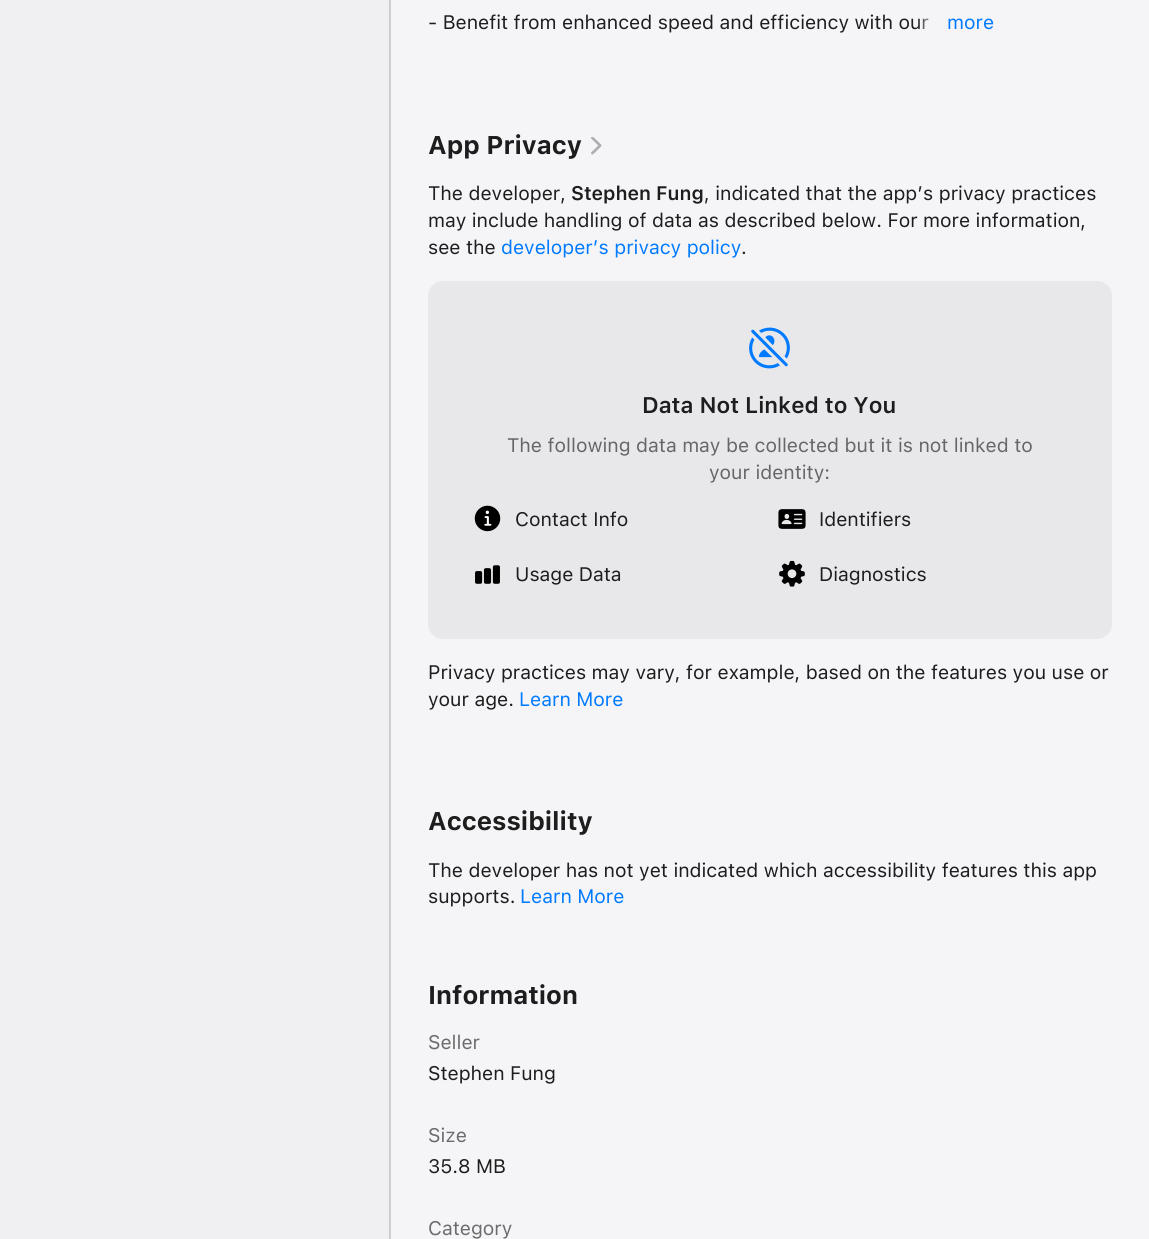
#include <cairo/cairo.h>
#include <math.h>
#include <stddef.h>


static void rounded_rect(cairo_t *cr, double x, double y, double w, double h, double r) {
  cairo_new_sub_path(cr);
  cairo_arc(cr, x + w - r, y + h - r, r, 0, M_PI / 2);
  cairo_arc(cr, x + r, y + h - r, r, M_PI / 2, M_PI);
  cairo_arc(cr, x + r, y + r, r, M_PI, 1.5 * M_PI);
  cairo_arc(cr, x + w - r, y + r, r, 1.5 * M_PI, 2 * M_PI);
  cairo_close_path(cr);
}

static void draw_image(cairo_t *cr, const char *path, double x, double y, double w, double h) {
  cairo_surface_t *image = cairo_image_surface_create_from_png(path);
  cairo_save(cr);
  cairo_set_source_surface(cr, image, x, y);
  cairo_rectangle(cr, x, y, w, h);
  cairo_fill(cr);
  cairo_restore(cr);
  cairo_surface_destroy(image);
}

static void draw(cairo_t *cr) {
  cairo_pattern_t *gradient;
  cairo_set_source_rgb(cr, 245 / 255.0, 245 / 255.0, 247 / 255.0);
  cairo_paint(cr);
  cairo_set_source_rgb(cr, 208 / 255.0, 208 / 255.0, 210 / 255.0);
  cairo_rectangle(cr, 390, 0, 1, 1239);
  cairo_fill(cr);
  cairo_set_source_rgb(cr, 240 / 255.0, 240 / 255.0, 242 / 255.0);
  cairo_rectangle(cr, 0, 0, 389, 1239);
  cairo_fill(cr);
  cairo_set_source_rgb(cr, 204 / 255.0, 204 / 255.0, 206 / 255.0);
  cairo_rectangle(cr, 389, 0, 1, 1239);
  cairo_fill(cr);
  draw_image(cr, "images/1.png", 591, 137, 11, 18);
  cairo_set_source_rgb(cr, 232 / 255.0, 232 / 255.0, 235 / 255.0);
  rounded_rect(cr, 428, 281, 684, 358, 15);
  cairo_fill(cr);
  draw_image(cr, "images/2.png", 749, 327, 41, 42);
  draw_image(cr, "images/3.png", 474, 505, 27, 27);
  draw_image(cr, "images/4.png", 778, 509, 28, 20);
  draw_image(cr, "images/5.png", 475, 565, 25, 19);
  draw_image(cr, "images/6.png", 779, 560, 26, 27);
  cairo_select_font_face(cr, "SF", CAIRO_FONT_SLANT_NORMAL, CAIRO_FONT_WEIGHT_NORMAL);
  cairo_set_font_size(cr, 19.5);
  cairo_set_source_rgb(cr, 29 / 255.0, 29 / 255.0, 30 / 255.0);
  cairo_move_to(cr, 428, 29);
  cairo_show_text(cr, "- Benefit from enhanced speed and efficiency with our");
  gradient = cairo_pattern_create_linear(993, 23, 917, 23);
  cairo_pattern_add_color_stop_rgba(gradient, 0.72, 245 / 255.0, 245 / 255.0, 247 / 255.0, 1);
  cairo_pattern_add_color_stop_rgba(gradient, 1, 245 / 255.0, 245 / 255.0, 247 / 255.0, 0);
  cairo_set_source(cr, gradient);
  cairo_pattern_destroy(gradient);
  cairo_rectangle(cr, 917, 18, 11, 11);
  cairo_fill(cr);
  cairo_set_source_rgb(cr, 0, 122 / 255.0, 1);
  cairo_move_to(cr, 947, 29);
  cairo_show_text(cr, "more");
  cairo_select_font_face(cr, "SF", CAIRO_FONT_SLANT_NORMAL, CAIRO_FONT_WEIGHT_BOLD);
  cairo_set_font_size(cr, 25.5);
  cairo_set_source_rgb(cr, 29 / 255.0, 29 / 255.0, 30 / 255.0);
  cairo_move_to(cr, 428, 154);
  cairo_show_text(cr, "App Privacy");
  cairo_select_font_face(cr, "SF", CAIRO_FONT_SLANT_NORMAL, CAIRO_FONT_WEIGHT_NORMAL);
  cairo_set_font_size(cr, 19.5);
  cairo_move_to(cr, 428, 200);
  cairo_show_text(cr, "The developer,");
  cairo_select_font_face(cr, "SF SemiBold", CAIRO_FONT_SLANT_NORMAL, CAIRO_FONT_WEIGHT_NORMAL);
  cairo_move_to(cr, 571, 200);
  cairo_show_text(cr, "Stephen Fung");
  cairo_select_font_face(cr, "SF", CAIRO_FONT_SLANT_NORMAL, CAIRO_FONT_WEIGHT_NORMAL);
  cairo_move_to(cr, 704, 200);
  cairo_show_text(cr, ", indicated that the app’s privacy practices");
  cairo_move_to(cr, 428, 227);
  cairo_show_text(cr, "may include handling of data as described below. For more information,");
  cairo_move_to(cr, 428, 254);
  cairo_show_text(cr, "see the");
  cairo_set_source_rgb(cr, 0, 122 / 255.0, 1);
  cairo_move_to(cr, 501, 254);
  cairo_show_text(cr, "developer’s privacy policy");
  cairo_set_source_rgb(cr, 29 / 255.0, 29 / 255.0, 30 / 255.0);
  cairo_move_to(cr, 741, 254);
  cairo_show_text(cr, ".");
  cairo_select_font_face(cr, "SF SemiBold", CAIRO_FONT_SLANT_NORMAL, CAIRO_FONT_WEIGHT_NORMAL);
  cairo_set_font_size(cr, 22.5);
  cairo_move_to(cr, 642, 413);
  cairo_show_text(cr, "Data Not Linked to You");
  cairo_select_font_face(cr, "SF", CAIRO_FONT_SLANT_NORMAL, CAIRO_FONT_WEIGHT_NORMAL);
  cairo_set_font_size(cr, 19.5);
  cairo_set_source_rgb(cr, 102 / 255.0, 102 / 255.0, 103 / 255.0);
  cairo_move_to(cr, 507, 452);
  cairo_show_text(cr, "The following data may be collected but it is not linked to");
  cairo_move_to(cr, 709, 479);
  cairo_show_text(cr, "your identity:");
  cairo_set_source_rgb(cr, 29 / 255.0, 29 / 255.0, 30 / 255.0);
  cairo_move_to(cr, 515, 526);
  cairo_show_text(cr, "Contact Info");
  cairo_move_to(cr, 819, 526);
  cairo_show_text(cr, "Identifiers");
  cairo_move_to(cr, 515, 581);
  cairo_show_text(cr, "Usage Data");
  cairo_move_to(cr, 819, 581);
  cairo_show_text(cr, "Diagnostics");
  cairo_move_to(cr, 428, 679);
  cairo_show_text(cr, "Privacy practices may vary, for example, based on the features you use or");
  cairo_move_to(cr, 428, 706);
  cairo_show_text(cr, "your age.");
  cairo_set_source_rgb(cr, 0, 122 / 255.0, 1);
  cairo_move_to(cr, 519, 706);
  cairo_show_text(cr, "Learn More");
  cairo_select_font_face(cr, "SF", CAIRO_FONT_SLANT_NORMAL, CAIRO_FONT_WEIGHT_BOLD);
  cairo_set_font_size(cr, 25.5);
  cairo_set_source_rgb(cr, 29 / 255.0, 29 / 255.0, 30 / 255.0);
  cairo_move_to(cr, 428, 830);
  cairo_show_text(cr, "Accessibility");
  cairo_select_font_face(cr, "SF", CAIRO_FONT_SLANT_NORMAL, CAIRO_FONT_WEIGHT_NORMAL);
  cairo_set_font_size(cr, 19.5);
  cairo_move_to(cr, 428, 877);
  cairo_show_text(cr, "The developer has not yet indicated which accessibility features this app");
  cairo_move_to(cr, 428, 903);
  cairo_show_text(cr, "supports.");
  cairo_set_source_rgb(cr, 0, 122 / 255.0, 1);
  cairo_move_to(cr, 520, 903);
  cairo_show_text(cr, "Learn More");
  cairo_select_font_face(cr, "SF", CAIRO_FONT_SLANT_NORMAL, CAIRO_FONT_WEIGHT_BOLD);
  cairo_set_font_size(cr, 25.5);
  cairo_set_source_rgb(cr, 29 / 255.0, 29 / 255.0, 30 / 255.0);
  cairo_move_to(cr, 428, 1004);
  cairo_show_text(cr, "Information");
  cairo_select_font_face(cr, "SF", CAIRO_FONT_SLANT_NORMAL, CAIRO_FONT_WEIGHT_NORMAL);
  cairo_set_font_size(cr, 19.5);
  cairo_set_source_rgb(cr, 108 / 255.0, 108 / 255.0, 109 / 255.0);
  cairo_move_to(cr, 428, 1049);
  cairo_show_text(cr, "Seller");
  cairo_set_source_rgb(cr, 29 / 255.0, 29 / 255.0, 30 / 255.0);
  cairo_move_to(cr, 428, 1080);
  cairo_show_text(cr, "Stephen Fung");
  cairo_set_source_rgb(cr, 108 / 255.0, 108 / 255.0, 109 / 255.0);
  cairo_move_to(cr, 428, 1142);
  cairo_show_text(cr, "Size");
  cairo_set_source_rgb(cr, 29 / 255.0, 29 / 255.0, 30 / 255.0);
  cairo_move_to(cr, 428, 1173);
  cairo_show_text(cr, "35.8 MB");
  cairo_set_source_rgb(cr, 108 / 255.0, 108 / 255.0, 109 / 255.0);
  cairo_move_to(cr, 428, 1235);
  cairo_show_text(cr, "Category");
}

int main(void) {
  cairo_surface_t *surface = cairo_image_surface_create(CAIRO_FORMAT_RGB24, 1149, 1239);
  cairo_t *cr = cairo_create(surface);
  cairo_font_options_t *options = cairo_font_options_create();
  cairo_font_options_set_hint_metrics(options, CAIRO_HINT_METRICS_OFF);
  cairo_font_options_set_hint_style(options, CAIRO_HINT_STYLE_NONE);
  cairo_set_font_options(cr, options);
  cairo_set_miter_limit(cr, 4);
  draw(cr);
  cairo_surface_write_to_png(surface, "out.png");
  cairo_font_options_destroy(options);
  cairo_destroy(cr);
  cairo_surface_destroy(surface);
  return 0;
}
